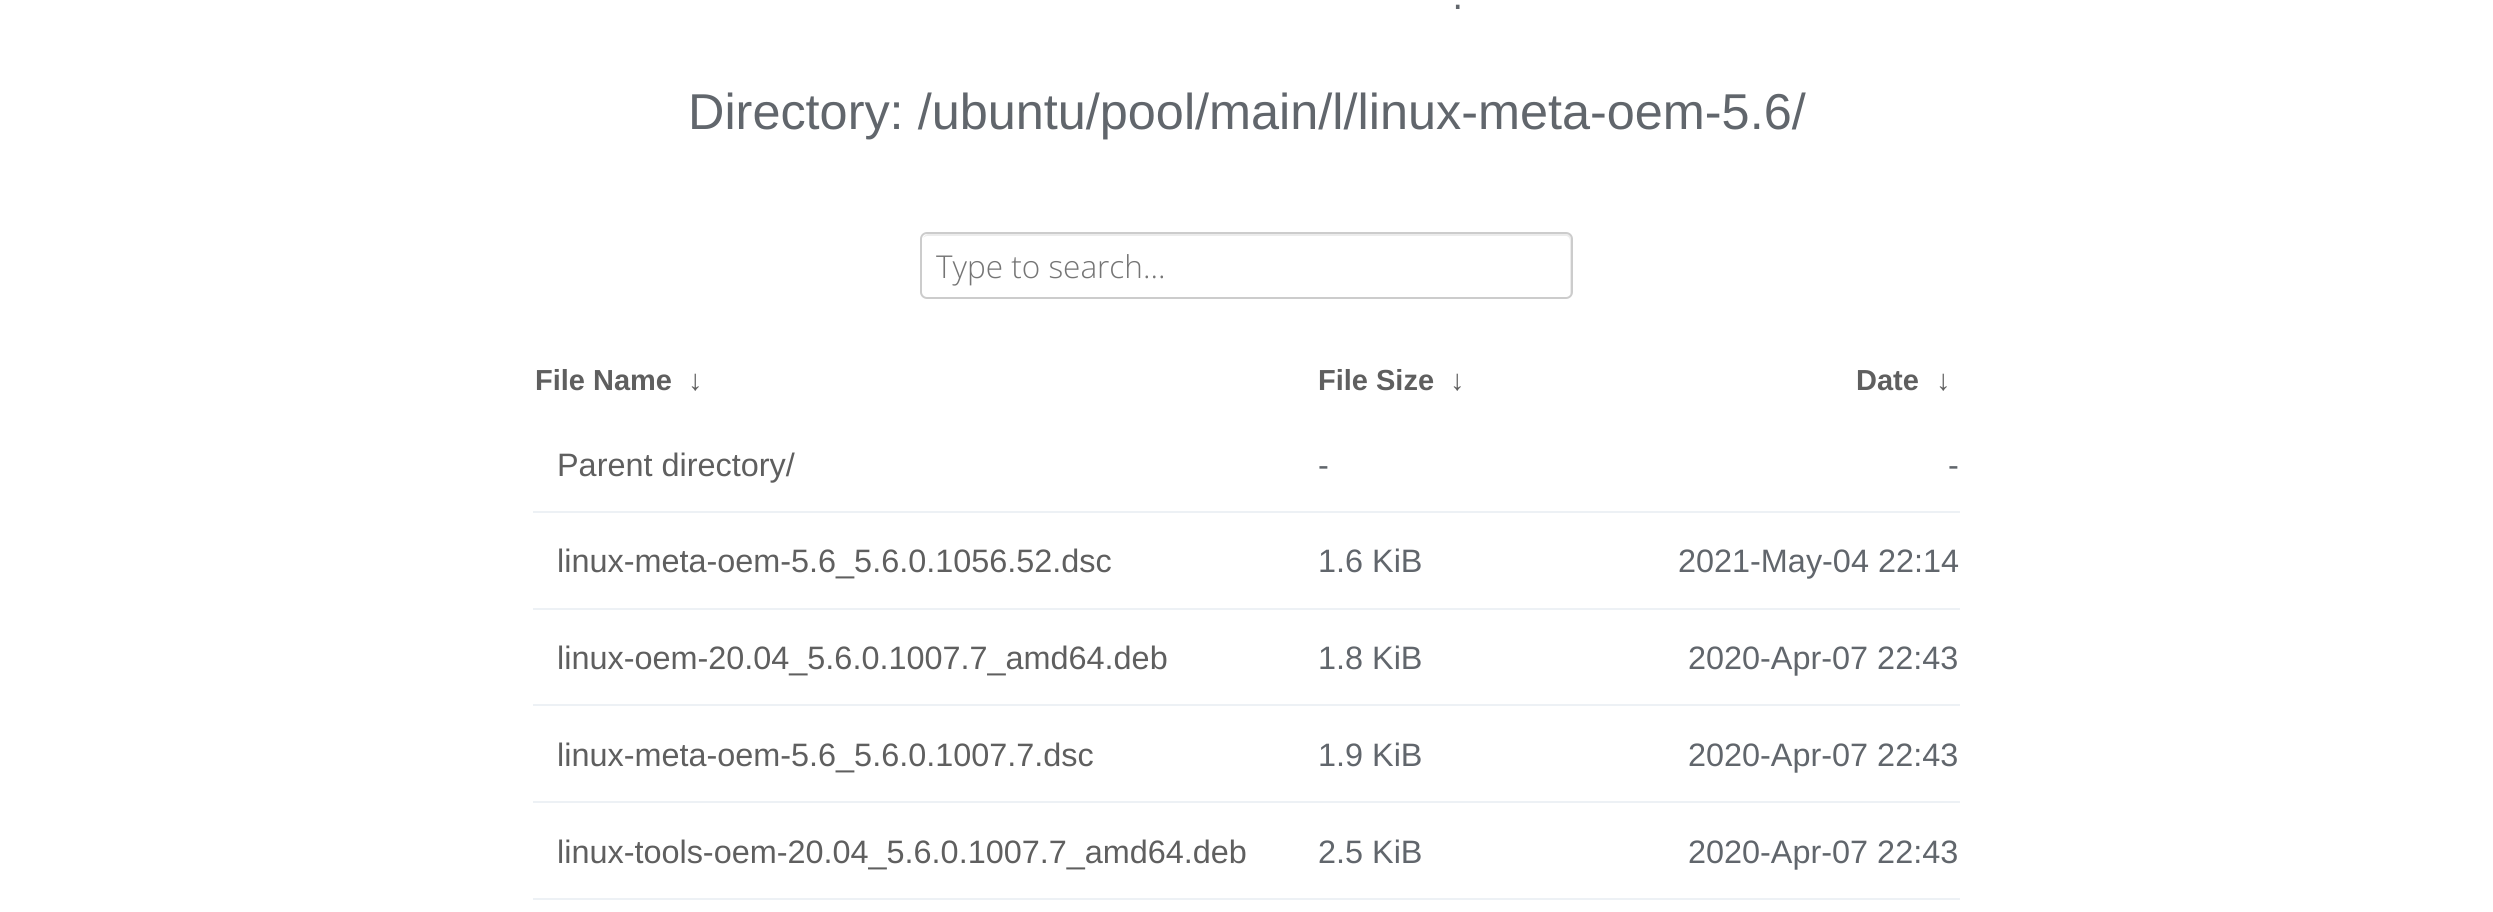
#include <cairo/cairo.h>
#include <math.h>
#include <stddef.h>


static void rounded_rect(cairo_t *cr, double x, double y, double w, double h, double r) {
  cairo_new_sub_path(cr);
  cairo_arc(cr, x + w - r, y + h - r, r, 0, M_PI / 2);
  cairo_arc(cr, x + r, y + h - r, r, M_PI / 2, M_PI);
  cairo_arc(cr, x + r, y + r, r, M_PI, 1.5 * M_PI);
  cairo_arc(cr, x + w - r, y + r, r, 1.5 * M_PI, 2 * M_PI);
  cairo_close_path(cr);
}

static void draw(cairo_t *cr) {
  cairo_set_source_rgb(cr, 1, 1, 1);
  cairo_paint(cr);
  cairo_set_source_rgb(cr, 236 / 255.0, 236 / 255.0, 236 / 255.0);
  cairo_new_path(cr);
  cairo_move_to(cr, 927, 236);
  cairo_line_to(cr, 1566, 236);
  cairo_curve_to(cr, 1568, 236, 1570, 238, 1570, 241);
  cairo_line_to(cr, 1570, 295);
  cairo_curve_to(cr, 1571, 294, 1571, 293, 1571, 292);
  cairo_line_to(cr, 1571, 239);
  cairo_curve_to(cr, 1571, 236, 1569, 234, 1566, 234);
  cairo_line_to(cr, 928, 234);
  cairo_curve_to(cr, 926, 234, 924, 236, 923, 238);
  cairo_curve_to(cr, 924, 237, 926, 236, 927, 236);
  cairo_close_path(cr);
  cairo_fill(cr);
  rounded_rect(cr, 921, 233, 651, 65, 6);
  cairo_set_source_rgb(cr, 204 / 255.0, 204 / 255.0, 204 / 255.0);
  cairo_stroke(cr);
  cairo_set_source_rgb(cr, 237 / 255.0, 241 / 255.0, 245 / 255.0);
  cairo_rectangle(cr, 533, 511, 1427, 2);
  cairo_fill(cr);
  cairo_rectangle(cr, 533, 608, 1427, 2);
  cairo_fill(cr);
  cairo_rectangle(cr, 533, 704, 1427, 2);
  cairo_fill(cr);
  cairo_rectangle(cr, 533, 801, 1427, 2);
  cairo_fill(cr);
  cairo_rectangle(cr, 533, 898, 1427, 2);
  cairo_fill(cr);
  cairo_select_font_face(cr, "DejaVu Sans Mono", CAIRO_FONT_SLANT_NORMAL, CAIRO_FONT_WEIGHT_NORMAL);
  cairo_set_font_size(cr, 29);
  cairo_set_source_rgb(cr, 97 / 255.0, 102 / 255.0, 108 / 255.0);
  cairo_move_to(cr, 1449, 9);
  cairo_show_text(cr, ".");
  cairo_select_font_face(cr, "Liberation Sans", CAIRO_FONT_SLANT_NORMAL, CAIRO_FONT_WEIGHT_NORMAL);
  cairo_set_font_size(cr, 50.4);
  cairo_move_to(cr, 688, 129);
  cairo_show_text(cr, "Directory: /ubuntu/pool/main/l/linux-meta-oem-5.6/");
  cairo_select_font_face(cr, "Open Sans Light", CAIRO_FONT_SLANT_NORMAL, CAIRO_FONT_WEIGHT_NORMAL);
  cairo_set_font_size(cr, 31.5);
  cairo_set_source_rgb(cr, 117 / 255.0, 117 / 255.0, 117 / 255.0);
  cairo_move_to(cr, 936, 278);
  cairo_show_text(cr, "Type to search...");
  cairo_select_font_face(cr, "Liberation Sans", CAIRO_FONT_SLANT_NORMAL, CAIRO_FONT_WEIGHT_BOLD);
  cairo_set_font_size(cr, 29);
  cairo_set_source_rgb(cr, 95 / 255.0, 95 / 255.0, 95 / 255.0);
  cairo_move_to(cr, 535, 390);
  cairo_show_text(cr, "File Name");
  cairo_move_to(cr, 688, 390);
  cairo_show_text(cr, "↓");
  cairo_move_to(cr, 1318, 390);
  cairo_show_text(cr, "File Size");
  cairo_move_to(cr, 1450, 390);
  cairo_show_text(cr, "↓");
  cairo_move_to(cr, 1856, 390);
  cairo_show_text(cr, "Date");
  cairo_move_to(cr, 1936, 390);
  cairo_show_text(cr, "↓");
  cairo_select_font_face(cr, "Liberation Sans", CAIRO_FONT_SLANT_NORMAL, CAIRO_FONT_WEIGHT_NORMAL);
  cairo_set_font_size(cr, 32.4);
  cairo_move_to(cr, 557, 476);
  cairo_show_text(cr, "Parent directory/");
  cairo_set_source_rgb(cr, 97 / 255.0, 102 / 255.0, 108 / 255.0);
  cairo_move_to(cr, 1318, 476);
  cairo_show_text(cr, "-");
  cairo_move_to(cr, 1948, 476);
  cairo_show_text(cr, "-");
  cairo_set_source_rgb(cr, 95 / 255.0, 95 / 255.0, 95 / 255.0);
  cairo_move_to(cr, 557, 572);
  cairo_show_text(cr, "linux-meta-oem-5.6_5.6.0.1056.52.dsc");
  cairo_set_source_rgb(cr, 97 / 255.0, 102 / 255.0, 108 / 255.0);
  cairo_move_to(cr, 1318, 572);
  cairo_show_text(cr, "1.6 KiB");
  cairo_move_to(cr, 1678, 572);
  cairo_show_text(cr, "2021-May-04 22:14");
  cairo_set_source_rgb(cr, 95 / 255.0, 95 / 255.0, 95 / 255.0);
  cairo_move_to(cr, 557, 669);
  cairo_show_text(cr, "linux-oem-20.04_5.6.0.1007.7_amd64.deb");
  cairo_set_source_rgb(cr, 97 / 255.0, 102 / 255.0, 108 / 255.0);
  cairo_move_to(cr, 1318, 669);
  cairo_show_text(cr, "1.8 KiB");
  cairo_move_to(cr, 1688, 669);
  cairo_show_text(cr, "2020-Apr-07 22:43");
  cairo_set_source_rgb(cr, 95 / 255.0, 95 / 255.0, 95 / 255.0);
  cairo_move_to(cr, 557, 766);
  cairo_show_text(cr, "linux-meta-oem-5.6_5.6.0.1007.7.dsc");
  cairo_set_source_rgb(cr, 97 / 255.0, 102 / 255.0, 108 / 255.0);
  cairo_move_to(cr, 1318, 766);
  cairo_show_text(cr, "1.9 KiB");
  cairo_move_to(cr, 1688, 766);
  cairo_show_text(cr, "2020-Apr-07 22:43");
  cairo_set_source_rgb(cr, 95 / 255.0, 95 / 255.0, 95 / 255.0);
  cairo_move_to(cr, 557, 863);
  cairo_show_text(cr, "linux-tools-oem-20.04_5.6.0.1007.7_amd64.deb");
  cairo_set_source_rgb(cr, 97 / 255.0, 102 / 255.0, 108 / 255.0);
  cairo_move_to(cr, 1318, 863);
  cairo_show_text(cr, "2.5 KiB");
  cairo_move_to(cr, 1688, 863);
  cairo_show_text(cr, "2020-Apr-07 22:43");
}

int main(void) {
  cairo_surface_t *surface = cairo_image_surface_create(CAIRO_FORMAT_RGB24, 2493, 912);
  cairo_t *cr = cairo_create(surface);
  cairo_font_options_t *options = cairo_font_options_create();
  cairo_font_options_set_hint_metrics(options, CAIRO_HINT_METRICS_OFF);
  cairo_font_options_set_hint_style(options, CAIRO_HINT_STYLE_NONE);
  cairo_set_font_options(cr, options);
  cairo_set_miter_limit(cr, 4);
  draw(cr);
  cairo_surface_write_to_png(surface, "out.png");
  cairo_font_options_destroy(options);
  cairo_destroy(cr);
  cairo_surface_destroy(surface);
  return 0;
}
